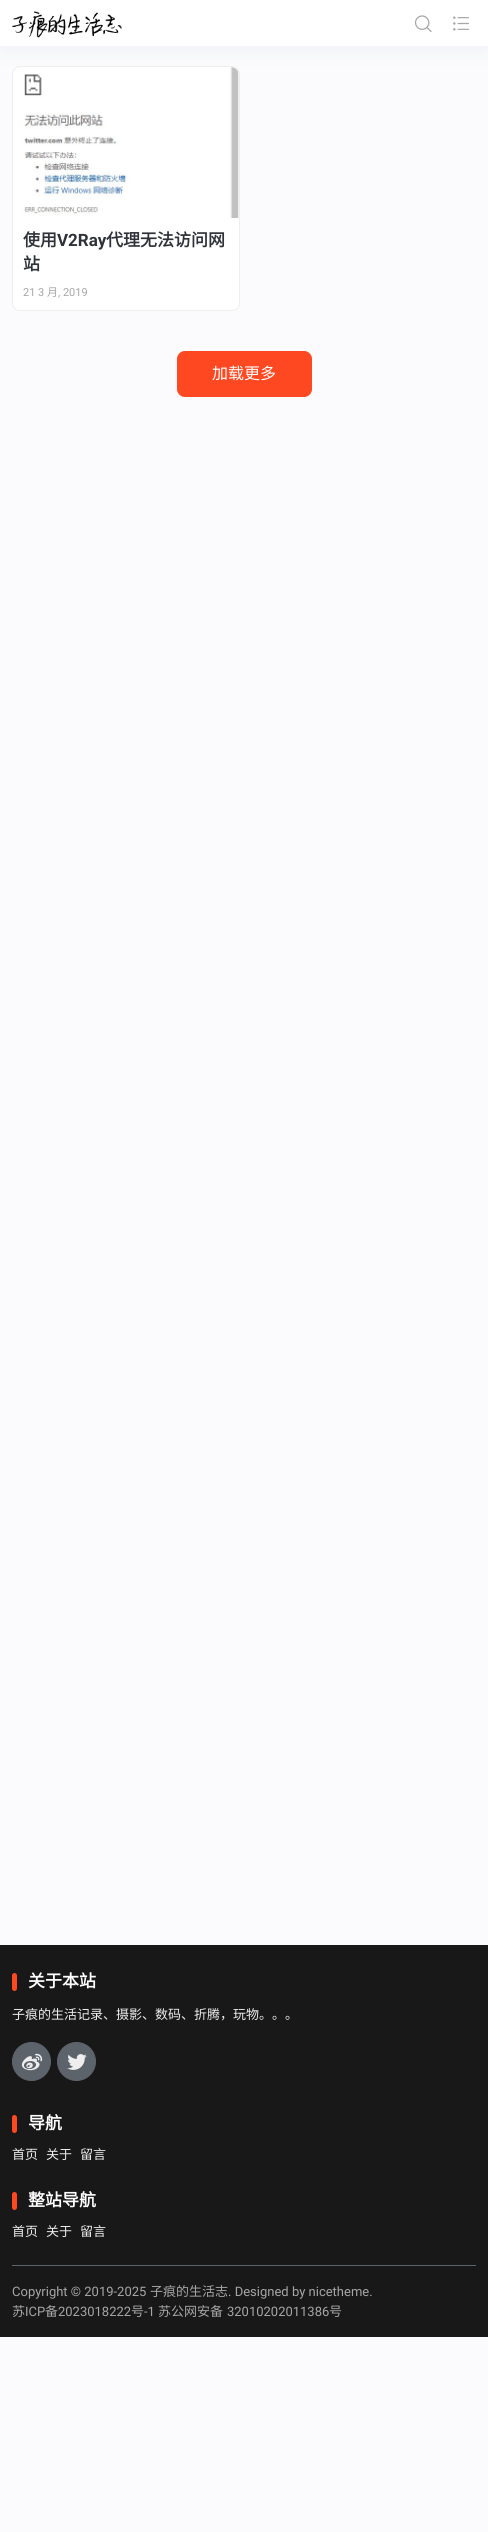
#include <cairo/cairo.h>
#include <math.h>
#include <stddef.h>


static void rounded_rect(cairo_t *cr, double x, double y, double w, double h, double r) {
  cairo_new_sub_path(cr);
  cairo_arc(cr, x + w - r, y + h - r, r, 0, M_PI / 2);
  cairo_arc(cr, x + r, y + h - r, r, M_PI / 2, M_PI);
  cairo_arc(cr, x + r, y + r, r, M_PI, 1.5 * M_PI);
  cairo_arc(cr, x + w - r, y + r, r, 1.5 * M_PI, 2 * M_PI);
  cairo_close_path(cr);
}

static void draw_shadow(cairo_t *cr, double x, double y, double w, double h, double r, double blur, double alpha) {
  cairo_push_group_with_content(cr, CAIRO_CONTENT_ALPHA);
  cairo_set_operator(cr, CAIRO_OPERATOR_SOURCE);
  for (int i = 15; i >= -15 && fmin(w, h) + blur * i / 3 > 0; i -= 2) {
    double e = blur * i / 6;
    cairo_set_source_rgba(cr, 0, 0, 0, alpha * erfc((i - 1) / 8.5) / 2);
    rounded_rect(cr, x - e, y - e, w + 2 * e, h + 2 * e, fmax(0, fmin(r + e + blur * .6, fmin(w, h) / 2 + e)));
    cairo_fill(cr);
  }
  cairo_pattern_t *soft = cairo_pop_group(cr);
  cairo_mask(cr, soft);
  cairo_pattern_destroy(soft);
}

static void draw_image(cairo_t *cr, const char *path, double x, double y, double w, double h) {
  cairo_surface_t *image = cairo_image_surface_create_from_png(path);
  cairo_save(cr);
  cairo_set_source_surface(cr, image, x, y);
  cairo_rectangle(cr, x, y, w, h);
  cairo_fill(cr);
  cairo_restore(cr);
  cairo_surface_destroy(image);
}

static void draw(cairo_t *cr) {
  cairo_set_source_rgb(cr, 251 / 255.0, 251 / 255.0, 253 / 255.0);
  cairo_paint(cr);
  cairo_set_source_rgb(cr, 1, 1, 1);
  rounded_rect(cr, 12.5, 66.5, 227, 244, 7.5);
  cairo_fill_preserve(cr);
  cairo_set_source_rgb(cr, 238 / 255.0, 238 / 255.0, 238 / 255.0);
  cairo_set_line_width(cr, 1);
  cairo_stroke(cr);
  cairo_set_source_rgba(cr, 120 / 255.0, 120 / 255.0, 120 / 255.0, 0.1);
  cairo_new_path(cr);
  cairo_move_to(cr, 21, 67);
  cairo_line_to(cr, 231, 67);
  cairo_curve_to(cr, 235.5, 67, 239, 70.5, 239, 75);
  cairo_line_to(cr, 239, 218);
  cairo_line_to(cr, 13, 218);
  cairo_line_to(cr, 13, 75);
  cairo_curve_to(cr, 13, 70.5, 16.5, 67, 21, 67);
  cairo_close_path(cr);
  cairo_fill(cr);
  draw_image(cr, "images/4.png", 13, 67, 226, 151);
  cairo_set_source_rgb(cr, 17 / 255.0, 58 / 255.0, 93 / 255.0);
  draw_shadow(cr, 0, 5, 488, 46, 0, 10, 0.05);
  cairo_set_source_rgb(cr, 1, 1, 1);
  cairo_rectangle(cr, 0, 0, 488, 46);
  cairo_fill(cr);
  draw_image(cr, "images/1.png", 12, 11, 110, 27);
  draw_image(cr, "images/2.png", 414, 15, 18, 17);
  draw_image(cr, "images/3.png", 453, 16, 16, 15);
  cairo_set_source_rgb(cr, 254 / 255.0, 72 / 255.0, 33 / 255.0);
  rounded_rect(cr, 177.5, 351.5, 134, 45, 7.5);
  cairo_fill_preserve(cr);
  cairo_stroke(cr);
  cairo_set_source_rgb(cr, 24 / 255.0, 24 / 255.0, 24 / 255.0);
  cairo_rectangle(cr, 0, 1945, 488, 392);
  cairo_fill(cr);
  cairo_set_source_rgb(cr, 254 / 255.0, 72 / 255.0, 33 / 255.0);
  rounded_rect(cr, 12, 1973, 5, 18, 2.5);
  cairo_fill(cr);
  cairo_set_source_rgb(cr, 93 / 255.0, 99 / 255.0, 107 / 255.0);
  cairo_arc(cr, 31.5, 2061.5, 19, 0, 2 * M_PI);
  cairo_fill_preserve(cr);
  cairo_stroke(cr);
  draw_image(cr, "images/5.png", 21, 2053, 22, 18);
  cairo_arc(cr, 76.5, 2061.5, 19, 0, 2 * M_PI);
  cairo_fill_preserve(cr);
  cairo_stroke(cr);
  draw_image(cr, "images/6.png", 67, 2054, 20, 16);
  cairo_set_source_rgb(cr, 254 / 255.0, 72 / 255.0, 33 / 255.0);
  rounded_rect(cr, 12, 2115, 5, 18, 2.5);
  cairo_fill(cr);
  rounded_rect(cr, 12, 2192, 5, 18, 2.5);
  cairo_fill(cr);
  cairo_set_source_rgb(cr, 93 / 255.0, 99 / 255.0, 107 / 255.0);
  cairo_rectangle(cr, 12, 2265, 464, 1);
  cairo_fill(cr);
  cairo_select_font_face(cr, "Noto Sans CJK SC", CAIRO_FONT_SLANT_NORMAL, CAIRO_FONT_WEIGHT_BOLD);
  cairo_set_font_size(cr, 17);
  cairo_set_source_rgb(cr, 47 / 255.0, 51 / 255.0, 57 / 255.0);
  cairo_move_to(cr, 23, 246);
  cairo_show_text(cr, "使用");
  cairo_select_font_face(cr, "Roboto", CAIRO_FONT_SLANT_NORMAL, CAIRO_FONT_WEIGHT_BOLD);
  cairo_move_to(cr, 57, 246);
  cairo_show_text(cr, "V2Ray");
  cairo_select_font_face(cr, "Noto Sans CJK SC", CAIRO_FONT_SLANT_NORMAL, CAIRO_FONT_WEIGHT_BOLD);
  cairo_move_to(cr, 106, 246);
  cairo_show_text(cr, "代理无法访问网");
  cairo_move_to(cr, 23, 270);
  cairo_show_text(cr, "站");
  cairo_select_font_face(cr, "Roboto", CAIRO_FONT_SLANT_NORMAL, CAIRO_FONT_WEIGHT_NORMAL);
  cairo_set_font_size(cr, 11);
  cairo_set_source_rgb(cr, 166 / 255.0, 166 / 255.0, 166 / 255.0);
  cairo_move_to(cr, 23, 296);
  cairo_show_text(cr, "21 3");
  cairo_select_font_face(cr, "Noto Sans CJK SC", CAIRO_FONT_SLANT_NORMAL, CAIRO_FONT_WEIGHT_NORMAL);
  cairo_move_to(cr, 47, 296);
  cairo_show_text(cr, "月");
  cairo_select_font_face(cr, "Roboto", CAIRO_FONT_SLANT_NORMAL, CAIRO_FONT_WEIGHT_NORMAL);
  cairo_move_to(cr, 58, 296);
  cairo_show_text(cr, ", 2019");
  cairo_select_font_face(cr, "Noto Sans CJK SC", CAIRO_FONT_SLANT_NORMAL, CAIRO_FONT_WEIGHT_NORMAL);
  cairo_set_font_size(cr, 16);
  cairo_set_source_rgb(cr, 1, 1, 1);
  cairo_move_to(cr, 212, 379);
  cairo_show_text(cr, "加载更多");
  cairo_select_font_face(cr, "Noto Sans CJK SC", CAIRO_FONT_SLANT_NORMAL, CAIRO_FONT_WEIGHT_BOLD);
  cairo_set_font_size(cr, 17);
  cairo_move_to(cr, 28, 1987);
  cairo_show_text(cr, "关于本站");
  cairo_select_font_face(cr, "Noto Sans CJK SC", CAIRO_FONT_SLANT_NORMAL, CAIRO_FONT_WEIGHT_NORMAL);
  cairo_set_font_size(cr, 13);
  cairo_set_source_rgb(cr, 238 / 255.0, 238 / 255.0, 238 / 255.0);
  cairo_move_to(cr, 12, 2019);
  cairo_show_text(cr, "子痕的生活记录、摄影、数码、折腾，玩物。。。");
  cairo_select_font_face(cr, "Noto Sans CJK SC", CAIRO_FONT_SLANT_NORMAL, CAIRO_FONT_WEIGHT_BOLD);
  cairo_set_font_size(cr, 17);
  cairo_set_source_rgb(cr, 1, 1, 1);
  cairo_move_to(cr, 28, 2129);
  cairo_show_text(cr, "导航");
  cairo_select_font_face(cr, "Noto Sans CJK SC", CAIRO_FONT_SLANT_NORMAL, CAIRO_FONT_WEIGHT_NORMAL);
  cairo_set_font_size(cr, 13);
  cairo_set_source_rgb(cr, 238 / 255.0, 238 / 255.0, 238 / 255.0);
  cairo_move_to(cr, 12, 2159);
  cairo_show_text(cr, "首页");
  cairo_move_to(cr, 46, 2159);
  cairo_show_text(cr, "关于");
  cairo_move_to(cr, 80, 2159);
  cairo_show_text(cr, "留言");
  cairo_select_font_face(cr, "Noto Sans CJK SC", CAIRO_FONT_SLANT_NORMAL, CAIRO_FONT_WEIGHT_BOLD);
  cairo_set_font_size(cr, 17);
  cairo_set_source_rgb(cr, 1, 1, 1);
  cairo_move_to(cr, 28, 2206);
  cairo_show_text(cr, "整站导航");
  cairo_select_font_face(cr, "Noto Sans CJK SC", CAIRO_FONT_SLANT_NORMAL, CAIRO_FONT_WEIGHT_NORMAL);
  cairo_set_font_size(cr, 13);
  cairo_set_source_rgb(cr, 238 / 255.0, 238 / 255.0, 238 / 255.0);
  cairo_move_to(cr, 12, 2236);
  cairo_show_text(cr, "首页");
  cairo_move_to(cr, 46, 2236);
  cairo_show_text(cr, "关于");
  cairo_move_to(cr, 80, 2236);
  cairo_show_text(cr, "留言");
  cairo_select_font_face(cr, "Roboto", CAIRO_FONT_SLANT_NORMAL, CAIRO_FONT_WEIGHT_NORMAL);
  cairo_set_source_rgb(cr, 166 / 255.0, 166 / 255.0, 166 / 255.0);
  cairo_move_to(cr, 12, 2296);
  cairo_show_text(cr, "Copyright © 2019-2025");
  cairo_select_font_face(cr, "Noto Sans CJK SC", CAIRO_FONT_SLANT_NORMAL, CAIRO_FONT_WEIGHT_NORMAL);
  cairo_move_to(cr, 150, 2296);
  cairo_show_text(cr, "子痕的生活志");
  cairo_select_font_face(cr, "Roboto", CAIRO_FONT_SLANT_NORMAL, CAIRO_FONT_WEIGHT_NORMAL);
  cairo_move_to(cr, 228, 2296);
  cairo_show_text(cr, ". Designed by nicetheme.");
  cairo_select_font_face(cr, "Noto Sans CJK SC", CAIRO_FONT_SLANT_NORMAL, CAIRO_FONT_WEIGHT_NORMAL);
  cairo_move_to(cr, 12, 2316);
  cairo_show_text(cr, "苏");
  cairo_select_font_face(cr, "Roboto", CAIRO_FONT_SLANT_NORMAL, CAIRO_FONT_WEIGHT_NORMAL);
  cairo_move_to(cr, 25, 2316);
  cairo_show_text(cr, "ICP");
  cairo_select_font_face(cr, "Noto Sans CJK SC", CAIRO_FONT_SLANT_NORMAL, CAIRO_FONT_WEIGHT_NORMAL);
  cairo_move_to(cr, 45, 2316);
  cairo_show_text(cr, "备");
  cairo_select_font_face(cr, "Roboto", CAIRO_FONT_SLANT_NORMAL, CAIRO_FONT_WEIGHT_NORMAL);
  cairo_move_to(cr, 58, 2316);
  cairo_show_text(cr, "2023018222");
  cairo_select_font_face(cr, "Noto Sans CJK SC", CAIRO_FONT_SLANT_NORMAL, CAIRO_FONT_WEIGHT_NORMAL);
  cairo_move_to(cr, 131, 2316);
  cairo_show_text(cr, "号");
  cairo_select_font_face(cr, "Roboto", CAIRO_FONT_SLANT_NORMAL, CAIRO_FONT_WEIGHT_NORMAL);
  cairo_move_to(cr, 144, 2316);
  cairo_show_text(cr, "-1");
  cairo_select_font_face(cr, "Noto Sans CJK SC", CAIRO_FONT_SLANT_NORMAL, CAIRO_FONT_WEIGHT_NORMAL);
  cairo_move_to(cr, 158, 2316);
  cairo_show_text(cr, "苏公网安备");
  cairo_select_font_face(cr, "Roboto", CAIRO_FONT_SLANT_NORMAL, CAIRO_FONT_WEIGHT_NORMAL);
  cairo_move_to(cr, 227, 2316);
  cairo_show_text(cr, "32010202011386");
  cairo_select_font_face(cr, "Noto Sans CJK SC", CAIRO_FONT_SLANT_NORMAL, CAIRO_FONT_WEIGHT_NORMAL);
  cairo_move_to(cr, 329, 2316);
  cairo_show_text(cr, "号");
}

int main(void) {
  cairo_surface_t *surface = cairo_image_surface_create(CAIRO_FORMAT_RGB24, 488, 2532);
  cairo_t *cr = cairo_create(surface);
  cairo_font_options_t *options = cairo_font_options_create();
  cairo_font_options_set_hint_metrics(options, CAIRO_HINT_METRICS_OFF);
  cairo_font_options_set_hint_style(options, CAIRO_HINT_STYLE_NONE);
  cairo_set_font_options(cr, options);
  cairo_set_miter_limit(cr, 4);
  draw(cr);
  cairo_surface_write_to_png(surface, "out.png");
  cairo_font_options_destroy(options);
  cairo_destroy(cr);
  cairo_surface_destroy(surface);
  return 0;
}
